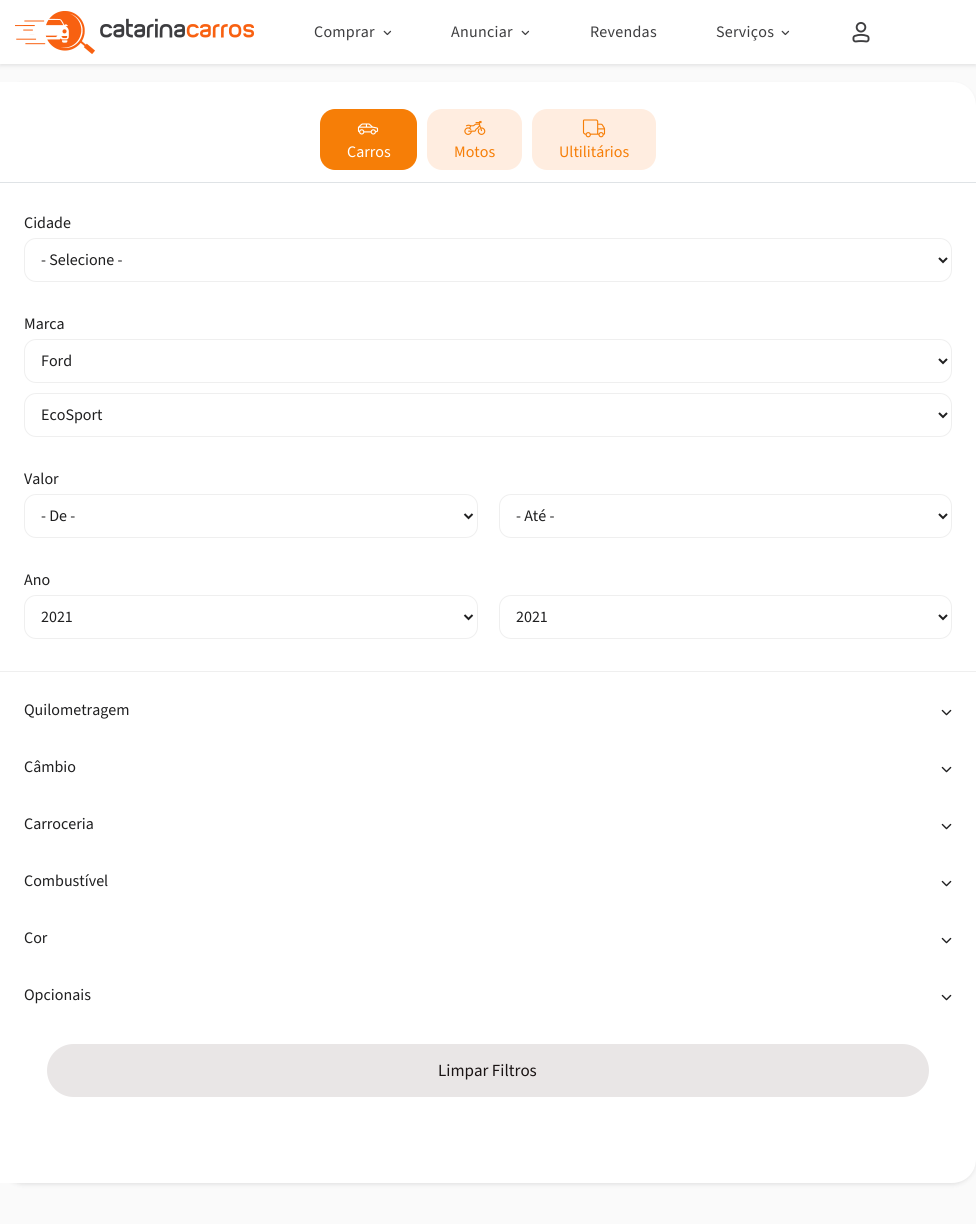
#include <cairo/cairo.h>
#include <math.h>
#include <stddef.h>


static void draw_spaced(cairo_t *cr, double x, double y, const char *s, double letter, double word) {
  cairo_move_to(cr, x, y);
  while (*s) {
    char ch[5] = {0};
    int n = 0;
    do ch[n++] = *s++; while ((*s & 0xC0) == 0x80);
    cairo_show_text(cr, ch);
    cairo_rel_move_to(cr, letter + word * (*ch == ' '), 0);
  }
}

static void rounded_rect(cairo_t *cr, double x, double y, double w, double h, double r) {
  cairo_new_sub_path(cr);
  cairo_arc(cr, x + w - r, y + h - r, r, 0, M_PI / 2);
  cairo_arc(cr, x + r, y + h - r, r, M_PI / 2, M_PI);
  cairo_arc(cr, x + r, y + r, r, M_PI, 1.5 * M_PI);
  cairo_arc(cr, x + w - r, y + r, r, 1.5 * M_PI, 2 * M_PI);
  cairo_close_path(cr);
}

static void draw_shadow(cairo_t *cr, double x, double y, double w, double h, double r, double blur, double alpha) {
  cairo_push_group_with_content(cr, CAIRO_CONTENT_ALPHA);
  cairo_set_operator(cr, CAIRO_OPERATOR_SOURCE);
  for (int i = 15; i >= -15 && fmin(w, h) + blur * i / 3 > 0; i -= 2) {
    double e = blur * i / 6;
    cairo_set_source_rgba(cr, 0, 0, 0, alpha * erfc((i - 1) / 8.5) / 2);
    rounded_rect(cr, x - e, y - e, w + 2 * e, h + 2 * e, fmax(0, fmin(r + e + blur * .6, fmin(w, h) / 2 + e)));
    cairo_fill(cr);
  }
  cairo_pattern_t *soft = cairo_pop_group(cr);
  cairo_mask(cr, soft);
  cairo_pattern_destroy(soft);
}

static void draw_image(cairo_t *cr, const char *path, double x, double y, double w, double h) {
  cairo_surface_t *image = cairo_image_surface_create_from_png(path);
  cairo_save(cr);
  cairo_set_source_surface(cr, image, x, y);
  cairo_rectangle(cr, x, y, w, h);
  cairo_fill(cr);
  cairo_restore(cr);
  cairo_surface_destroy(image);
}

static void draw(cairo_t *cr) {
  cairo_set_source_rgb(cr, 250 / 255.0, 250 / 255.0, 250 / 255.0);
  cairo_paint(cr);
  cairo_set_source_rgb(cr, 42 / 255.0, 42 / 255.0, 43 / 255.0);
  draw_shadow(cr, 0, 2, 976, 64, 0, 2, 0.1);
  cairo_set_source_rgb(cr, 1, 1, 1);
  cairo_rectangle(cr, 0, 0, 976, 64);
  cairo_fill(cr);
  draw_image(cr, "images/1.png", 15, 11, 239, 43);
  draw_image(cr, "images/2.png", 383, 30, 9, 6);
  draw_image(cr, "images/2.png", 521, 30, 9, 6);
  draw_image(cr, "images/2.png", 781, 30, 9, 6);
  draw_image(cr, "images/3.png", 852, 22, 18, 21);
  cairo_set_source_rgb(cr, 42 / 255.0, 42 / 255.0, 43 / 255.0);
  draw_shadow(cr, 0, 84, 976, 1101, 24, 2, 0.1);
  cairo_set_source_rgb(cr, 1, 1, 1);
  cairo_new_path(cr);
  cairo_move_to(cr, 0, 82);
  cairo_line_to(cr, 952, 82);
  cairo_curve_to(cr, 965.5, 82, 976, 92.5, 976, 106);
  cairo_line_to(cr, 976, 1159);
  cairo_curve_to(cr, 976, 1172.5, 965.5, 1183, 952, 1183);
  cairo_line_to(cr, 0, 1183);
  cairo_close_path(cr);
  cairo_fill(cr);
  cairo_set_source_rgb(cr, 223 / 255.0, 227 / 255.0, 230 / 255.0);
  cairo_rectangle(cr, 0, 182, 976, 1);
  cairo_fill(cr);
  cairo_set_source_rgb(cr, 246 / 255.0, 126 / 255.0, 7 / 255.0);
  rounded_rect(cr, 320, 109, 97, 61, 15);
  cairo_fill(cr);
  draw_image(cr, "images/4.png", 357, 123, 22, 12);
  cairo_set_source_rgb(cr, 1, 237 / 255.0, 224 / 255.0);
  rounded_rect(cr, 427, 109, 95, 61, 15);
  cairo_fill(cr);
  draw_image(cr, "images/5.png", 464, 120, 22, 15);
  rounded_rect(cr, 532, 109, 124, 61, 15);
  cairo_fill(cr);
  draw_image(cr, "images/6.png", 582, 119, 24, 19);
  rounded_rect(cr, 24.5, 238.5, 927, 43, 11.5);
  cairo_set_source_rgb(cr, 239 / 255.0, 239 / 255.0, 239 / 255.0);
  cairo_set_line_width(cr, 1);
  cairo_stroke(cr);
  cairo_new_path(cr);
  cairo_move_to(cr, 939, 258);
  cairo_line_to(cr, 943, 262);
  cairo_line_to(cr, 947, 258);
  cairo_set_source_rgb(cr, 31 / 255.0, 31 / 255.0, 32 / 255.0);
  cairo_set_line_width(cr, 2);
  cairo_stroke(cr);
  rounded_rect(cr, 24.5, 339.5, 927, 43, 11.5);
  cairo_set_source_rgb(cr, 239 / 255.0, 239 / 255.0, 239 / 255.0);
  cairo_set_line_width(cr, 1);
  cairo_stroke(cr);
  cairo_new_path(cr);
  cairo_move_to(cr, 939, 359);
  cairo_line_to(cr, 943, 363);
  cairo_line_to(cr, 947, 359);
  cairo_set_source_rgb(cr, 31 / 255.0, 31 / 255.0, 32 / 255.0);
  cairo_set_line_width(cr, 2);
  cairo_stroke(cr);
  rounded_rect(cr, 24.5, 393.5, 927, 43, 11.5);
  cairo_set_source_rgb(cr, 239 / 255.0, 239 / 255.0, 239 / 255.0);
  cairo_set_line_width(cr, 1);
  cairo_stroke(cr);
  cairo_new_path(cr);
  cairo_move_to(cr, 939, 413);
  cairo_line_to(cr, 943, 417);
  cairo_line_to(cr, 947, 413);
  cairo_set_source_rgb(cr, 31 / 255.0, 31 / 255.0, 32 / 255.0);
  cairo_set_line_width(cr, 2);
  cairo_stroke(cr);
  rounded_rect(cr, 24.5, 494.5, 453, 43, 11.5);
  cairo_set_source_rgb(cr, 239 / 255.0, 239 / 255.0, 239 / 255.0);
  cairo_set_line_width(cr, 1);
  cairo_stroke(cr);
  cairo_new_path(cr);
  cairo_move_to(cr, 464.5, 514);
  cairo_line_to(cr, 468.5, 518);
  cairo_line_to(cr, 472.5, 514);
  cairo_set_source_rgb(cr, 31 / 255.0, 31 / 255.0, 32 / 255.0);
  cairo_set_line_width(cr, 2);
  cairo_stroke(cr);
  rounded_rect(cr, 499.5, 494.5, 452, 43, 11.5);
  cairo_set_source_rgb(cr, 239 / 255.0, 239 / 255.0, 239 / 255.0);
  cairo_set_line_width(cr, 1);
  cairo_stroke(cr);
  cairo_new_path(cr);
  cairo_move_to(cr, 939, 514);
  cairo_line_to(cr, 943, 518);
  cairo_line_to(cr, 947, 514);
  cairo_set_source_rgb(cr, 31 / 255.0, 31 / 255.0, 32 / 255.0);
  cairo_set_line_width(cr, 2);
  cairo_stroke(cr);
  rounded_rect(cr, 24.5, 595.5, 453, 43, 11.5);
  cairo_set_source_rgb(cr, 239 / 255.0, 239 / 255.0, 239 / 255.0);
  cairo_set_line_width(cr, 1);
  cairo_stroke(cr);
  cairo_new_path(cr);
  cairo_move_to(cr, 464.5, 615);
  cairo_line_to(cr, 468.5, 619);
  cairo_line_to(cr, 472.5, 615);
  cairo_set_source_rgb(cr, 31 / 255.0, 31 / 255.0, 32 / 255.0);
  cairo_set_line_width(cr, 2);
  cairo_stroke(cr);
  rounded_rect(cr, 499.5, 595.5, 452, 43, 11.5);
  cairo_set_source_rgb(cr, 239 / 255.0, 239 / 255.0, 239 / 255.0);
  cairo_set_line_width(cr, 1);
  cairo_stroke(cr);
  cairo_new_path(cr);
  cairo_move_to(cr, 939, 615);
  cairo_line_to(cr, 943, 619);
  cairo_line_to(cr, 947, 615);
  cairo_set_source_rgb(cr, 31 / 255.0, 31 / 255.0, 32 / 255.0);
  cairo_set_line_width(cr, 2);
  cairo_stroke(cr);
  cairo_set_source_rgb(cr, 239 / 255.0, 239 / 255.0, 239 / 255.0);
  cairo_rectangle(cr, 0, 671, 976, 1);
  cairo_fill(cr);
  draw_image(cr, "images/7.png", 941, 709, 11, 7);
  draw_image(cr, "images/7.png", 941, 766, 11, 7);
  draw_image(cr, "images/7.png", 941, 823, 11, 7);
  draw_image(cr, "images/7.png", 941, 880, 11, 7);
  draw_image(cr, "images/7.png", 941, 937, 11, 7);
  draw_image(cr, "images/7.png", 941, 994, 11, 7);
  cairo_set_source_rgb(cr, 233 / 255.0, 230 / 255.0, 230 / 255.0);
  rounded_rect(cr, 47, 1044, 882, 53, 26.5);
  cairo_fill(cr);
  cairo_select_font_face(cr, "Source Sans 3", CAIRO_FONT_SLANT_NORMAL, CAIRO_FONT_WEIGHT_NORMAL);
  cairo_set_font_size(cr, 16);
  cairo_set_source_rgb(cr, 62 / 255.0, 62 / 255.0, 64 / 255.0);
  draw_spaced(cr, 314, 37, "Comprar", 0.25, 0);
  draw_spaced(cr, 451, 37, "Anunciar", 0.25, 0);
  draw_spaced(cr, 590, 37, "Revendas", 0.25, 0);
  draw_spaced(cr, 716, 37, "Serviços", 0.25, 0);
  cairo_set_source_rgb(cr, 1, 1, 1);
  cairo_move_to(cr, 347, 157);
  cairo_show_text(cr, "Carros");
  cairo_set_source_rgb(cr, 246 / 255.0, 126 / 255.0, 7 / 255.0);
  cairo_move_to(cr, 454, 157);
  cairo_show_text(cr, "Motos");
  cairo_move_to(cr, 559, 157);
  cairo_show_text(cr, "Ultilitários");
  cairo_set_source_rgb(cr, 31 / 255.0, 31 / 255.0, 32 / 255.0);
  cairo_move_to(cr, 24, 228);
  cairo_show_text(cr, "Cidade");
  cairo_move_to(cr, 41, 265);
  cairo_show_text(cr, "- Selecione -");
  cairo_move_to(cr, 24, 329);
  cairo_show_text(cr, "Marca");
  cairo_move_to(cr, 41, 366);
  cairo_show_text(cr, "Ford");
  cairo_move_to(cr, 41, 420);
  cairo_show_text(cr, "EcoSport");
  cairo_move_to(cr, 24, 484);
  cairo_show_text(cr, "Valor");
  cairo_move_to(cr, 41, 521);
  cairo_show_text(cr, "- De -");
  cairo_move_to(cr, 516, 521);
  cairo_show_text(cr, "- Até -");
  cairo_move_to(cr, 24, 585);
  cairo_show_text(cr, "Ano");
  cairo_move_to(cr, 41, 622);
  cairo_show_text(cr, "2021");
  cairo_move_to(cr, 516, 622);
  cairo_show_text(cr, "2021");
  cairo_move_to(cr, 24, 715);
  cairo_show_text(cr, "Quilometragem");
  cairo_move_to(cr, 24, 772);
  cairo_show_text(cr, "Câmbio");
  cairo_move_to(cr, 24, 829);
  cairo_show_text(cr, "Carroceria");
  cairo_move_to(cr, 24, 886);
  cairo_show_text(cr, "Combustível");
  cairo_move_to(cr, 24, 943);
  cairo_show_text(cr, "Cor");
  cairo_move_to(cr, 24, 1000);
  cairo_show_text(cr, "Opcionais");
  cairo_set_font_size(cr, 17);
  cairo_set_source_rgb(cr, 26 / 255.0, 20 / 255.0, 20 / 255.0);
  cairo_move_to(cr, 438, 1076);
  cairo_show_text(cr, "Limpar Filtros");
}

int main(void) {
  cairo_surface_t *surface = cairo_image_surface_create(CAIRO_FORMAT_RGB24, 976, 1224);
  cairo_t *cr = cairo_create(surface);
  cairo_font_options_t *options = cairo_font_options_create();
  cairo_font_options_set_hint_metrics(options, CAIRO_HINT_METRICS_OFF);
  cairo_font_options_set_hint_style(options, CAIRO_HINT_STYLE_NONE);
  cairo_set_font_options(cr, options);
  cairo_set_miter_limit(cr, 4);
  draw(cr);
  cairo_surface_write_to_png(surface, "out.png");
  cairo_font_options_destroy(options);
  cairo_destroy(cr);
  cairo_surface_destroy(surface);
  return 0;
}
